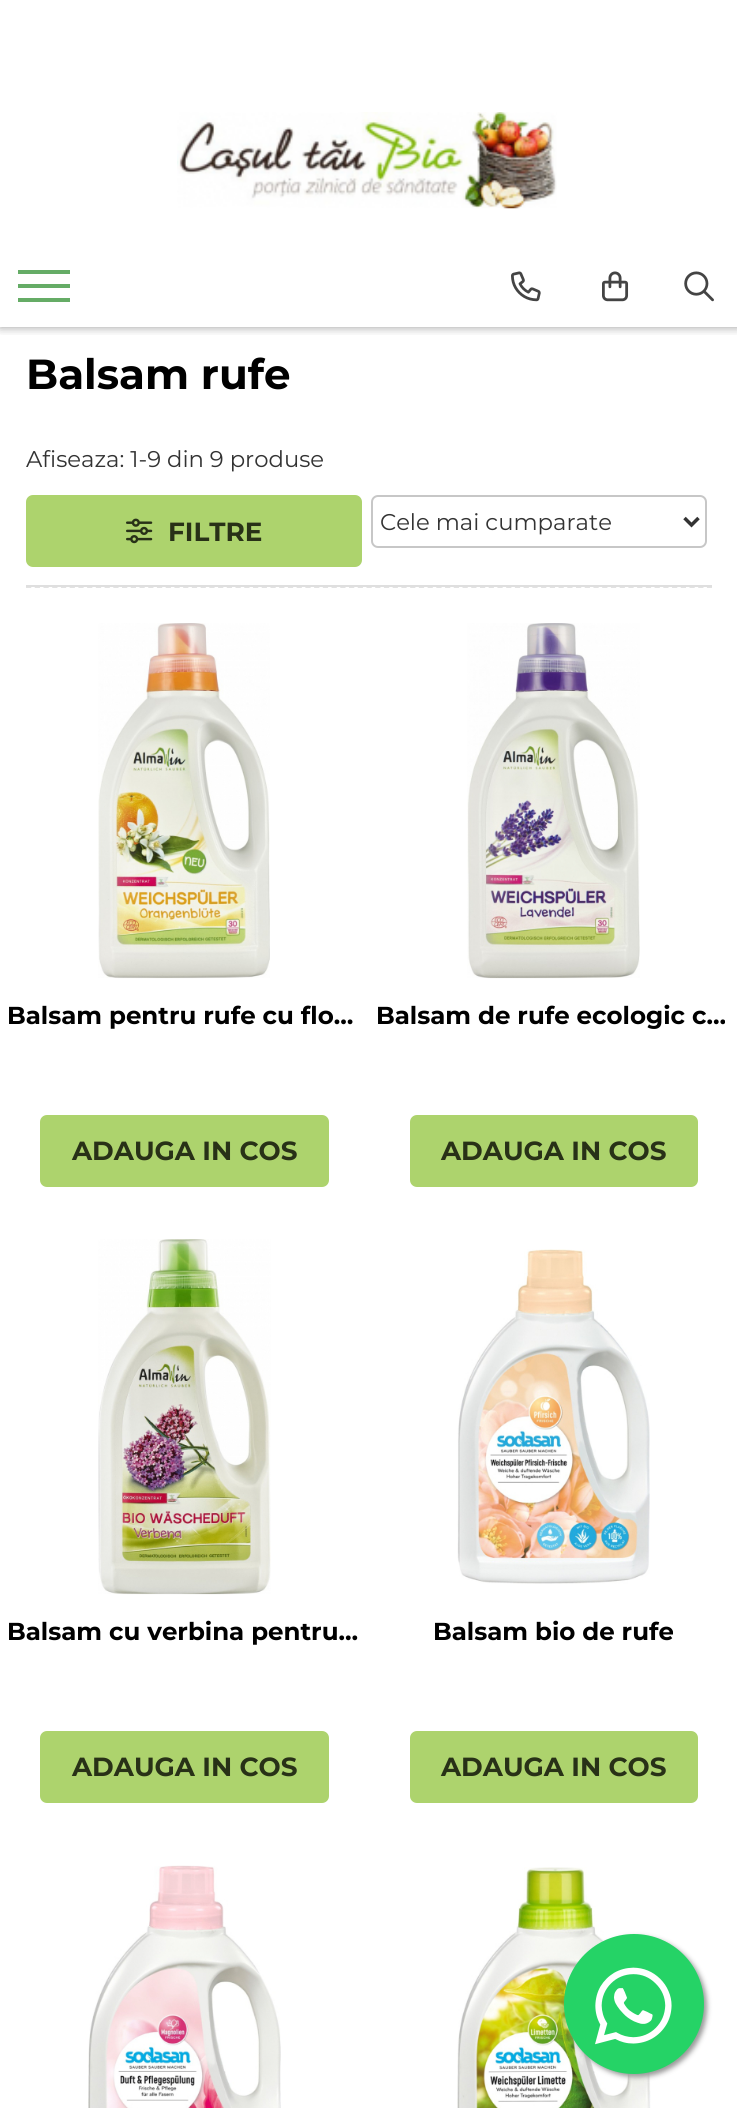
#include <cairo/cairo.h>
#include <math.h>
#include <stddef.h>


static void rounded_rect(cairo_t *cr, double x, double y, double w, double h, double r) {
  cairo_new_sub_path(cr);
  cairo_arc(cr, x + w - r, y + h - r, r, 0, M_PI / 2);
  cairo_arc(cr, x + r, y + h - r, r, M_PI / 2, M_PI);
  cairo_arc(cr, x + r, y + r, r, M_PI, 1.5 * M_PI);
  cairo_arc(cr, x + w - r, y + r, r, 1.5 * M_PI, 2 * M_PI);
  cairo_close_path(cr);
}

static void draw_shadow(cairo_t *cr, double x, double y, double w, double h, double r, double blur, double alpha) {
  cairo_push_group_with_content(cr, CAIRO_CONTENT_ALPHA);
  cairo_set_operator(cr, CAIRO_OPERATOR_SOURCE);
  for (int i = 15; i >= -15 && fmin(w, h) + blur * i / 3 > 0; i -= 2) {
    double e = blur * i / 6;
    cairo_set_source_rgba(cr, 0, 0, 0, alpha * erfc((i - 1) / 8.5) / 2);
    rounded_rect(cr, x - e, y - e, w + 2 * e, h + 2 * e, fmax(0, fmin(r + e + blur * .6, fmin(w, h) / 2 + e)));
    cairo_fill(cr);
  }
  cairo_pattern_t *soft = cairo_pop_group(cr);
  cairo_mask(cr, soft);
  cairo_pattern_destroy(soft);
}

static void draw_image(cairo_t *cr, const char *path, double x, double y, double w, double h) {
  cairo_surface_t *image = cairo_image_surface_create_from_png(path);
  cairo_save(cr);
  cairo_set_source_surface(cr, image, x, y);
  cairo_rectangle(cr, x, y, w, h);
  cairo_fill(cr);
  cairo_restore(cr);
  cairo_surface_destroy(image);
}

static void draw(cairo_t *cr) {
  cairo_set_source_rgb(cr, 1, 1, 1);
  cairo_paint(cr);
  cairo_save(cr);
  cairo_rectangle(cr, 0, 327, 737, 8);
  cairo_clip(cr);
  cairo_set_source_rgb(cr, 0, 0, 0);
  draw_shadow(cr, 0, 0, 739, 327, 0, 5, 0.4);
  cairo_restore(cr);
  draw_image(cr, "images/1.png", 177, 112, 380, 97);
  cairo_set_source_rgb(cr, 101 / 255.0, 172 / 255.0, 102 / 255.0);
  cairo_rectangle(cr, 18, 284, 52, 4);
  cairo_fill(cr);
  cairo_rectangle(cr, 18, 270, 52, 4);
  cairo_fill(cr);
  cairo_rectangle(cr, 18, 298, 52, 4);
  cairo_fill(cr);
  draw_image(cr, "images/2.png", 511, 271, 30, 31);
  draw_image(cr, "images/3.png", 602, 271, 27, 31);
  draw_image(cr, "images/4.png", 684, 271, 30, 31);
  cairo_set_source_rgb(cr, 223 / 255.0, 223 / 255.0, 223 / 255.0);
  cairo_rectangle(cr, 26, 585, 686, 2);
  cairo_fill(cr);
  cairo_set_source_rgb(cr, 173 / 255.0, 211 / 255.0, 109 / 255.0);
  rounded_rect(cr, 27, 496, 334, 70, 6);
  cairo_fill_preserve(cr);
  cairo_stroke(cr);
  draw_image(cr, "images/5.png", 126, 518, 27, 26);
  rounded_rect(cr, 372, 496, 334, 51, 6);
  cairo_set_source_rgb(cr, 199 / 255.0, 199 / 255.0, 199 / 255.0);
  cairo_stroke(cr);
  cairo_new_path(cr);
  cairo_move_to(cr, 684.5, 518);
  cairo_line_to(cr, 691.5, 525);
  cairo_line_to(cr, 698.5, 518);
  cairo_set_source_rgb(cr, 51 / 255.0, 51 / 255.0, 51 / 255.0);
  cairo_set_line_width(cr, 3.5);
  cairo_stroke(cr);
  cairo_new_path(cr);
  cairo_move_to(cr, 26, 587);
  cairo_line_to(cr, 712, 587);
  cairo_set_source_rgb(cr, 223 / 255.0, 223 / 255.0, 223 / 255.0);
  cairo_set_line_width(cr, 1.8);
  cairo_set_dash(cr, (double[]){5.25, 3.48}, 2, 0);
  cairo_stroke(cr);
  draw_image(cr, "images/6.png", 98, 623, 172, 356);
  cairo_set_source_rgb(cr, 173 / 255.0, 211 / 255.0, 109 / 255.0);
  rounded_rect(cr, 41, 1116, 287, 70, 6);
  cairo_fill_preserve(cr);
  cairo_set_line_width(cr, 2);
  cairo_set_dash(cr, NULL, 0, 0);
  cairo_stroke(cr);
  draw_image(cr, "images/7.png", 467, 623, 173, 356);
  rounded_rect(cr, 411, 1116, 286, 70, 6);
  cairo_fill_preserve(cr);
  cairo_stroke(cr);
  draw_image(cr, "images/8.png", 98, 1239, 173, 356);
  rounded_rect(cr, 41, 1732, 287, 70, 6);
  cairo_fill_preserve(cr);
  cairo_stroke(cr);
  draw_image(cr, "images/9.png", 457, 1249, 193, 335);
  rounded_rect(cr, 411, 1732, 286, 70, 6);
  cairo_fill_preserve(cr);
  cairo_stroke(cr);
  draw_image(cr, "images/10.png", 88, 1865, 193, 243);
  draw_image(cr, "images/11.png", 457, 1867, 194, 241);
  cairo_set_source_rgb(cr, 153 / 255.0, 153 / 255.0, 153 / 255.0);
  draw_shadow(cr, 567, 1937, 140, 140, 70, 2.5, 1);
  cairo_set_source_rgb(cr, 37 / 255.0, 211 / 255.0, 102 / 255.0);
  cairo_arc(cr, 634, 2004, 70, 0, 2 * M_PI);
  cairo_fill(cr);
  draw_image(cr, "images/12.png", 595, 1967, 77, 78);
  cairo_select_font_face(cr, "Montserrat", CAIRO_FONT_SLANT_NORMAL, CAIRO_FONT_WEIGHT_BOLD);
  cairo_set_font_size(cr, 42);
  cairo_set_source_rgb(cr, 0, 0, 0);
  cairo_move_to(cr, 26, 389);
  cairo_show_text(cr, "Balsam rufe");
  cairo_select_font_face(cr, "Montserrat", CAIRO_FONT_SLANT_NORMAL, CAIRO_FONT_WEIGHT_NORMAL);
  cairo_set_font_size(cr, 22.75);
  cairo_set_source_rgb(cr, 51 / 255.0, 51 / 255.0, 51 / 255.0);
  cairo_move_to(cr, 26, 467);
  cairo_show_text(cr, "Afiseaza: 1-9 din 9 produse");
  cairo_select_font_face(cr, "Montserrat", CAIRO_FONT_SLANT_NORMAL, CAIRO_FONT_WEIGHT_BOLD);
  cairo_set_font_size(cr, 26.25);
  cairo_set_source_rgb(cr, 40 / 255.0, 49 / 255.0, 23 / 255.0);
  cairo_move_to(cr, 168, 541);
  cairo_show_text(cr, "FILTRE");
  cairo_select_font_face(cr, "Montserrat", CAIRO_FONT_SLANT_NORMAL, CAIRO_FONT_WEIGHT_NORMAL);
  cairo_set_font_size(cr, 22.75);
  cairo_set_source_rgb(cr, 51 / 255.0, 51 / 255.0, 51 / 255.0);
  cairo_move_to(cr, 380, 530);
  cairo_show_text(cr, "Cele mai cumparate");
  cairo_select_font_face(cr, "Montserrat", CAIRO_FONT_SLANT_NORMAL, CAIRO_FONT_WEIGHT_BOLD);
  cairo_set_font_size(cr, 24.5);
  cairo_set_source_rgb(cr, 0, 0, 0);
  cairo_move_to(cr, 7, 1024);
  cairo_show_text(cr, "Balsam pentru rufe cu flo…");
  cairo_set_font_size(cr, 26.25);
  cairo_set_source_rgb(cr, 40 / 255.0, 49 / 255.0, 23 / 255.0);
  cairo_move_to(cr, 72, 1160);
  cairo_show_text(cr, "ADAUGA IN COS");
  cairo_set_font_size(cr, 24.5);
  cairo_set_source_rgb(cr, 0, 0, 0);
  cairo_move_to(cr, 376, 1024);
  cairo_show_text(cr, "Balsam de rufe ecologic c…");
  cairo_set_font_size(cr, 26.25);
  cairo_set_source_rgb(cr, 40 / 255.0, 49 / 255.0, 23 / 255.0);
  cairo_move_to(cr, 441, 1160);
  cairo_show_text(cr, "ADAUGA IN COS");
  cairo_set_font_size(cr, 24.5);
  cairo_set_source_rgb(cr, 0, 0, 0);
  cairo_move_to(cr, 7, 1640);
  cairo_show_text(cr, "Balsam cu verbina pentru…");
  cairo_set_font_size(cr, 26.25);
  cairo_set_source_rgb(cr, 40 / 255.0, 49 / 255.0, 23 / 255.0);
  cairo_move_to(cr, 72, 1776);
  cairo_show_text(cr, "ADAUGA IN COS");
  cairo_set_font_size(cr, 24.5);
  cairo_set_source_rgb(cr, 0, 0, 0);
  cairo_move_to(cr, 433, 1640);
  cairo_show_text(cr, "Balsam bio de rufe");
  cairo_set_font_size(cr, 26.25);
  cairo_set_source_rgb(cr, 40 / 255.0, 49 / 255.0, 23 / 255.0);
  cairo_move_to(cr, 441, 1776);
  cairo_show_text(cr, "ADAUGA IN COS");
}

int main(void) {
  cairo_surface_t *surface = cairo_image_surface_create(CAIRO_FORMAT_RGB24, 737, 2108);
  cairo_t *cr = cairo_create(surface);
  cairo_font_options_t *options = cairo_font_options_create();
  cairo_font_options_set_hint_metrics(options, CAIRO_HINT_METRICS_OFF);
  cairo_font_options_set_hint_style(options, CAIRO_HINT_STYLE_NONE);
  cairo_set_font_options(cr, options);
  cairo_set_miter_limit(cr, 4);
  draw(cr);
  cairo_surface_write_to_png(surface, "out.png");
  cairo_font_options_destroy(options);
  cairo_destroy(cr);
  cairo_surface_destroy(surface);
  return 0;
}
